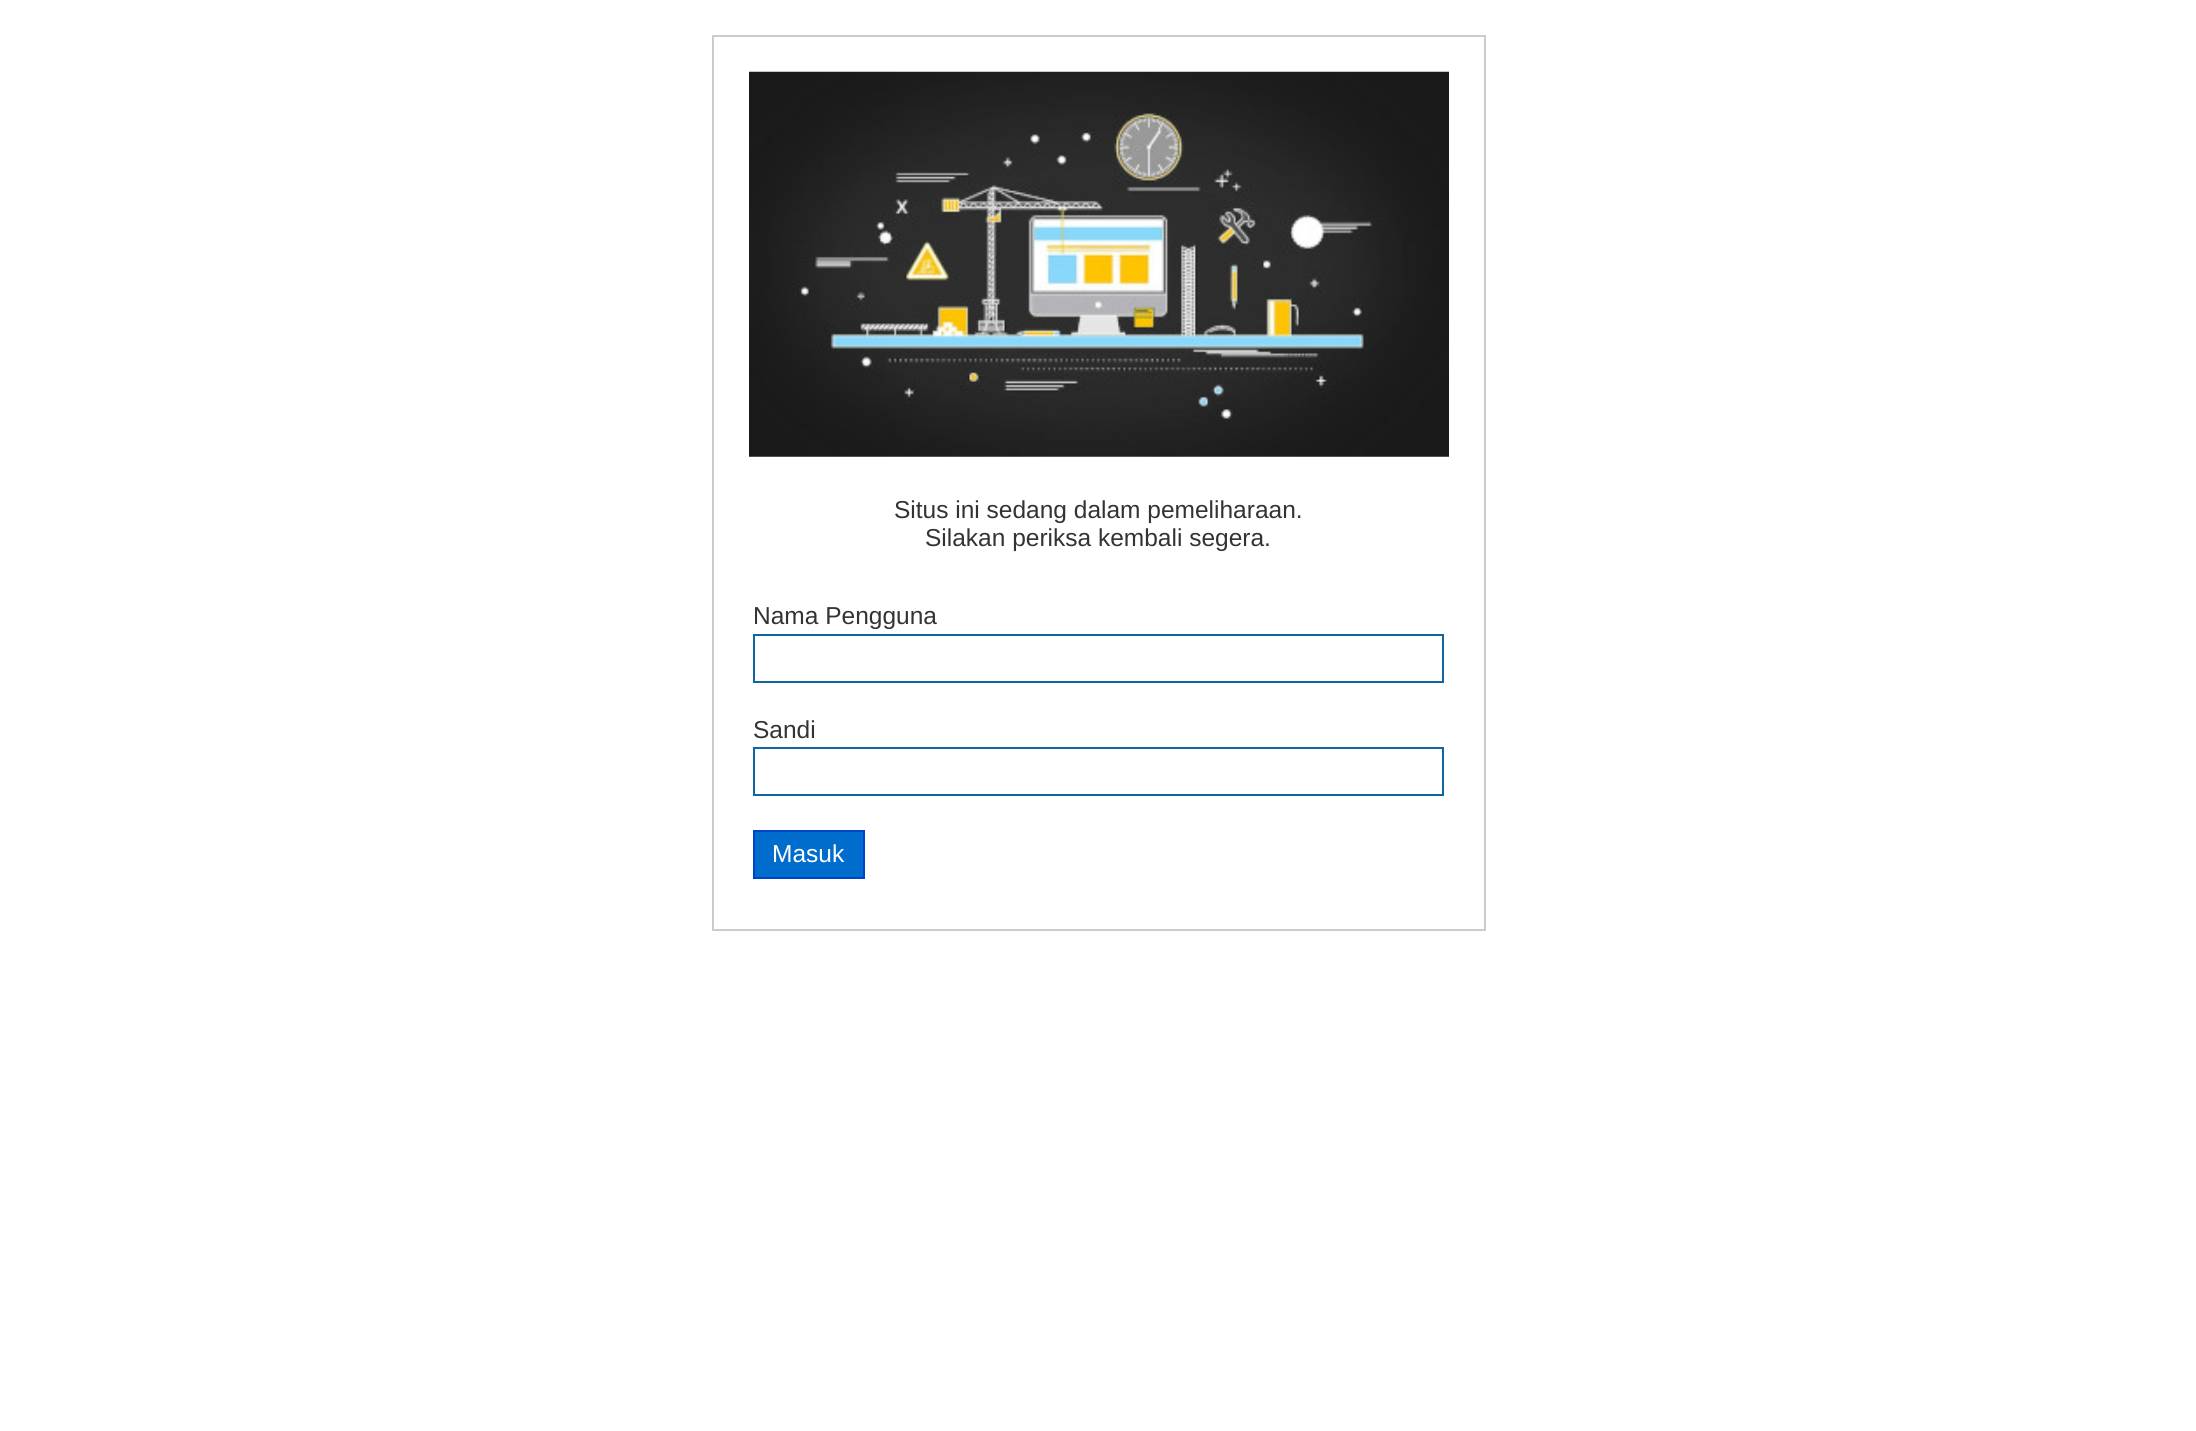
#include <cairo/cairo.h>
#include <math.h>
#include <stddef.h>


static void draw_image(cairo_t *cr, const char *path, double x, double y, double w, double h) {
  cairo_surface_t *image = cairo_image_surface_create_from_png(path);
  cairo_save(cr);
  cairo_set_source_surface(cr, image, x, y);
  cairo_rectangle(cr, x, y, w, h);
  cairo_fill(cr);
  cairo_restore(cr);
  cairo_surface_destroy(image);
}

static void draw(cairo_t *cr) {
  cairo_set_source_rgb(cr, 1, 1, 1);
  cairo_paint(cr);
  cairo_rectangle(cr, 713, 36, 772, 894);
  cairo_set_source_rgb(cr, 204 / 255.0, 204 / 255.0, 204 / 255.0);
  cairo_stroke(cr);
  draw_image(cr, "images/1.png", 749, 71, 700, 386);
  cairo_rectangle(cr, 754, 635, 689, 47);
  cairo_set_source_rgb(cr, 14 / 255.0, 103 / 255.0, 161 / 255.0);
  cairo_stroke(cr);
  cairo_rectangle(cr, 754, 748, 689, 47);
  cairo_stroke(cr);
  cairo_set_source_rgb(cr, 0, 109 / 255.0, 204 / 255.0);
  cairo_rectangle(cr, 754, 831, 110, 47);
  cairo_fill_preserve(cr);
  cairo_set_source_rgb(cr, 0, 68 / 255.0, 204 / 255.0);
  cairo_stroke(cr);
  cairo_select_font_face(cr, "Liberation Sans", CAIRO_FONT_SLANT_NORMAL, CAIRO_FONT_WEIGHT_NORMAL);
  cairo_set_font_size(cr, 24.5);
  cairo_set_source_rgb(cr, 51 / 255.0, 51 / 255.0, 51 / 255.0);
  cairo_move_to(cr, 894, 518);
  cairo_show_text(cr, "Situs ini sedang dalam pemeliharaan.");
  cairo_move_to(cr, 925, 546);
  cairo_show_text(cr, "Silakan periksa kembali segera.");
  cairo_move_to(cr, 753, 624);
  cairo_show_text(cr, "Nama Pengguna");
  cairo_move_to(cr, 753, 738);
  cairo_show_text(cr, "Sandi");
  cairo_set_source_rgb(cr, 1, 1, 1);
  cairo_move_to(cr, 772, 862);
  cairo_show_text(cr, "Masuk");
}

int main(void) {
  cairo_surface_t *surface = cairo_image_surface_create(CAIRO_FORMAT_RGB24, 2196, 1431);
  cairo_t *cr = cairo_create(surface);
  cairo_font_options_t *options = cairo_font_options_create();
  cairo_font_options_set_hint_metrics(options, CAIRO_HINT_METRICS_OFF);
  cairo_font_options_set_hint_style(options, CAIRO_HINT_STYLE_NONE);
  cairo_set_font_options(cr, options);
  cairo_set_miter_limit(cr, 4);
  draw(cr);
  cairo_surface_write_to_png(surface, "out.png");
  cairo_font_options_destroy(options);
  cairo_destroy(cr);
  cairo_surface_destroy(surface);
  return 0;
}
